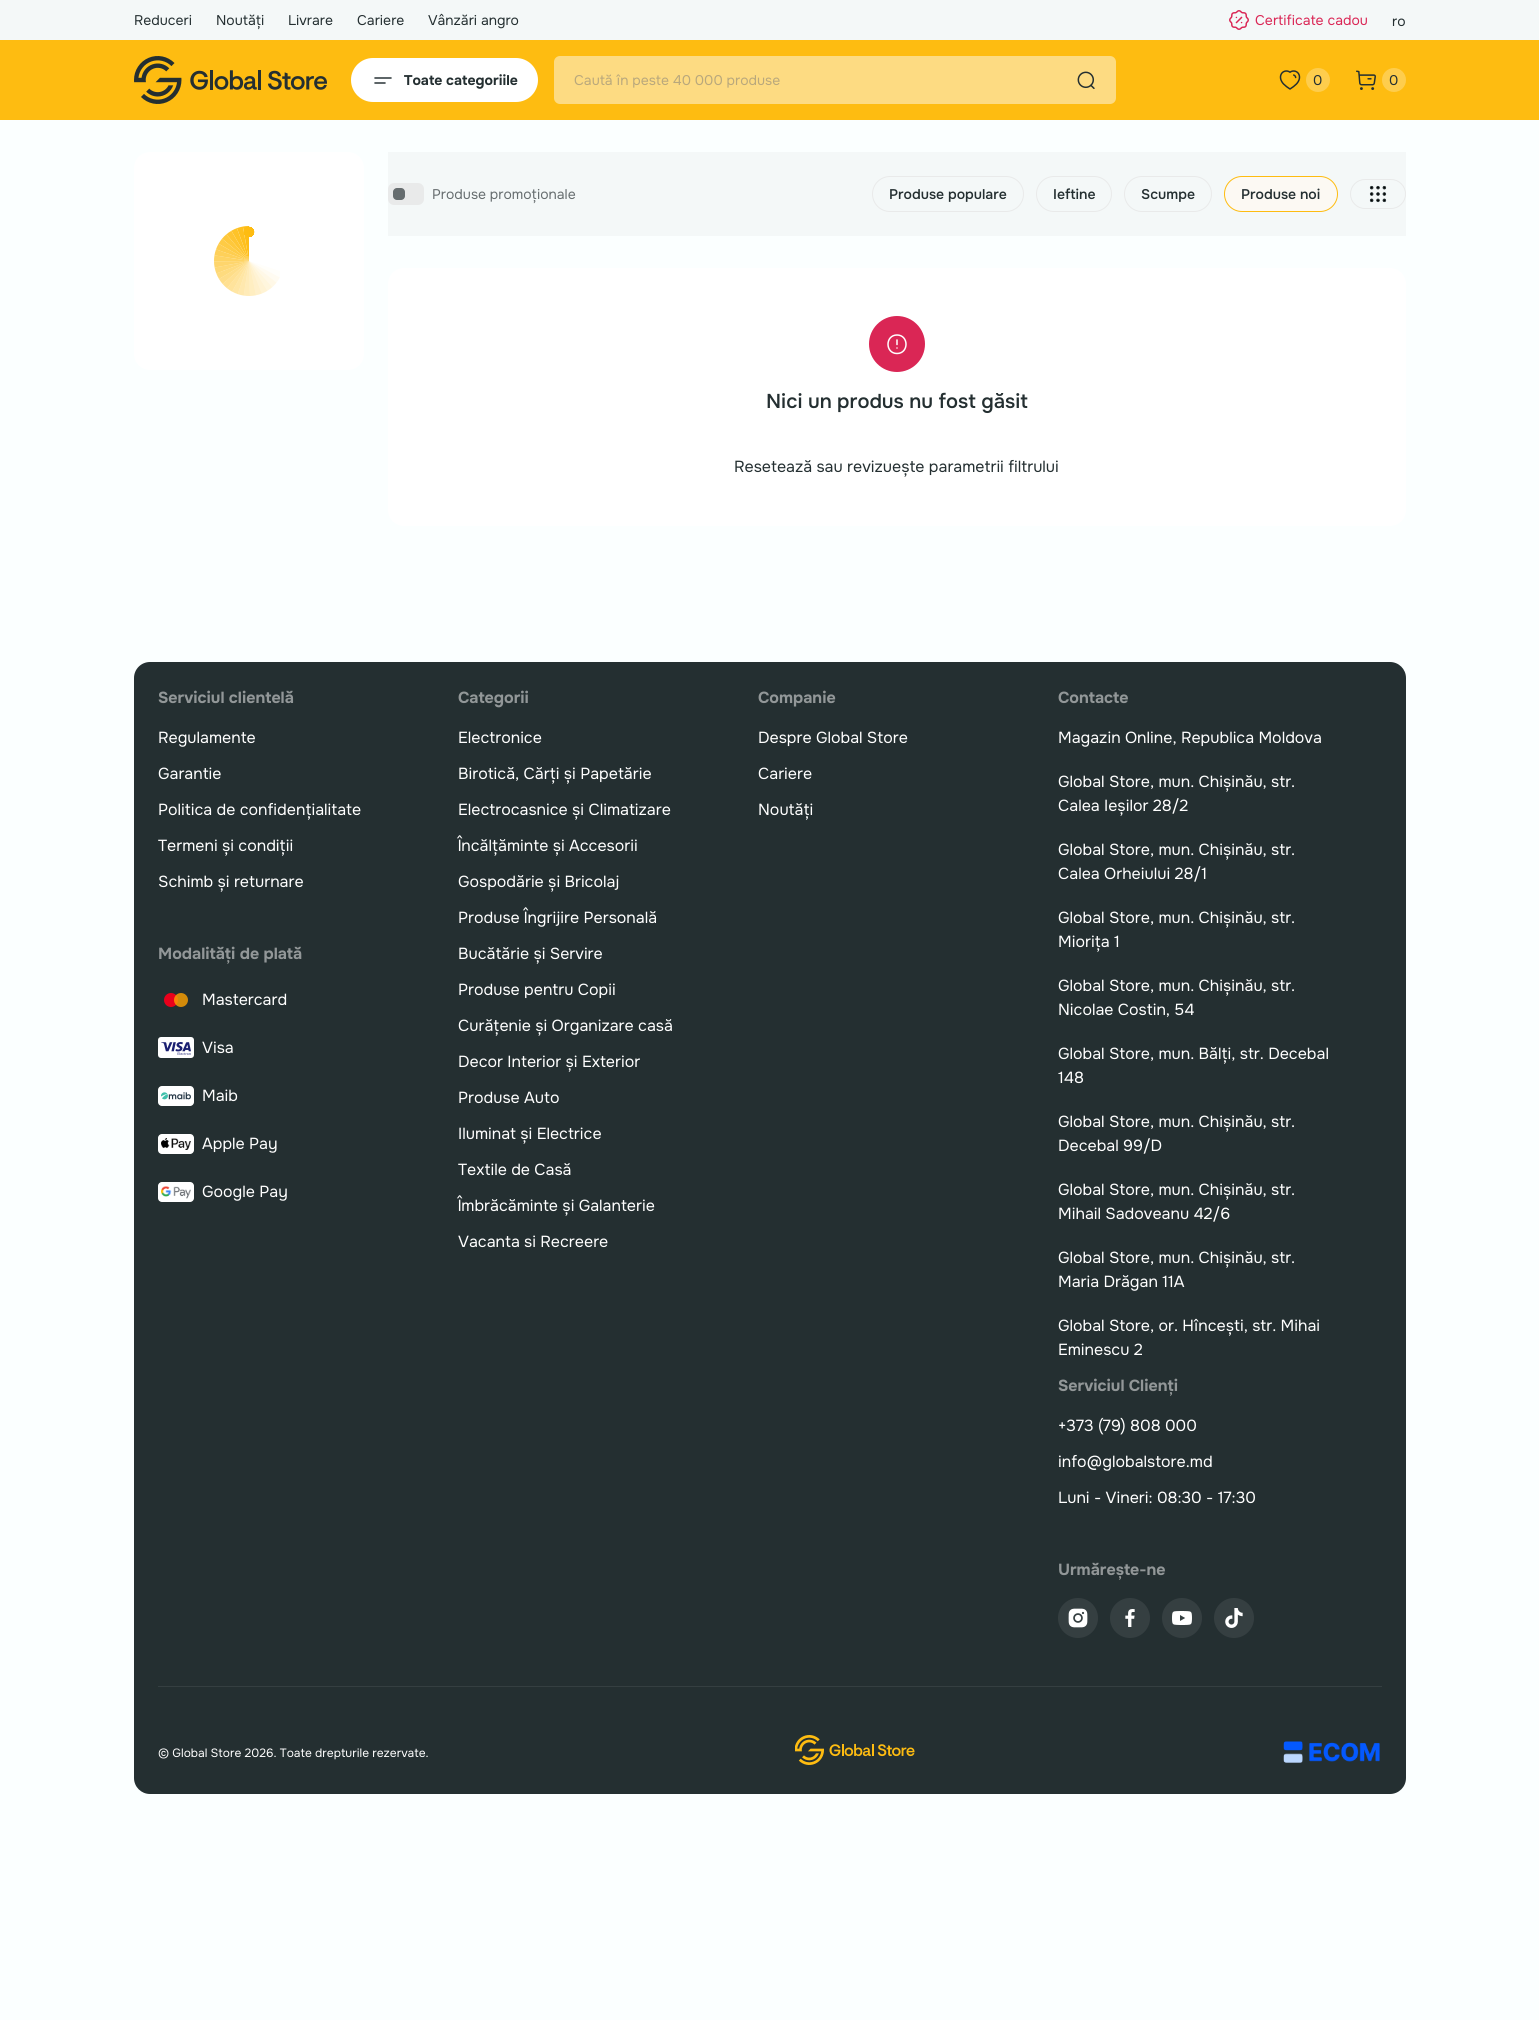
#include <cairo/cairo.h>
#include <math.h>
#include <stddef.h>


static void rounded_rect(cairo_t *cr, double x, double y, double w, double h, double r) {
  cairo_new_sub_path(cr);
  cairo_arc(cr, x + w - r, y + h - r, r, 0, M_PI / 2);
  cairo_arc(cr, x + r, y + h - r, r, M_PI / 2, M_PI);
  cairo_arc(cr, x + r, y + r, r, M_PI, 1.5 * M_PI);
  cairo_arc(cr, x + w - r, y + r, r, 1.5 * M_PI, 2 * M_PI);
  cairo_close_path(cr);
}

static void draw_image(cairo_t *cr, const char *path, double x, double y, double w, double h) {
  cairo_surface_t *image = cairo_image_surface_create_from_png(path);
  cairo_save(cr);
  cairo_set_source_surface(cr, image, x, y);
  cairo_rectangle(cr, x, y, w, h);
  cairo_fill(cr);
  cairo_restore(cr);
  cairo_surface_destroy(image);
}

static void draw(cairo_t *cr) {
  cairo_pattern_t *gradient;
  cairo_set_source_rgb(cr, 251 / 255.0, 1, 1);
  cairo_paint(cr);
  cairo_set_source_rgb(cr, 244 / 255.0, 248 / 255.0, 248 / 255.0);
  cairo_rectangle(cr, 0, 0, 1539, 40);
  cairo_fill(cr);
  draw_image(cr, "images/1.png", 1229, 10, 20, 20);
  cairo_set_source_rgb(cr, 254 / 255.0, 188 / 255.0, 17 / 255.0);
  cairo_rectangle(cr, 0, 40, 1539, 80);
  cairo_fill(cr);
  draw_image(cr, "images/2.png", 134, 56, 193, 48);
  cairo_set_source_rgb(cr, 1, 1, 1);
  rounded_rect(cr, 351, 58, 187, 44, 22);
  cairo_fill(cr);
  cairo_new_path(cr);
  cairo_move_to(cr, 375, 78);
  cairo_line_to(cr, 391, 78);
  cairo_move_to(cr, 375, 83);
  cairo_line_to(cr, 385, 83);
  cairo_set_source_rgb(cr, 36 / 255.0, 47 / 255.0, 49 / 255.0);
  cairo_set_line_width(cr, 1.5);
  cairo_set_line_cap(cr, CAIRO_LINE_CAP_ROUND);
  cairo_stroke(cr);
  cairo_set_source_rgb(cr, 253 / 255.0, 219 / 255.0, 130 / 255.0);
  rounded_rect(cr, 554, 56, 562, 48, 6);
  cairo_fill(cr);
  draw_image(cr, "images/3.png", 1077, 71, 18, 18);
  draw_image(cr, "images/4.png", 1279, 70, 22, 20);
  cairo_set_source_rgb(cr, 254 / 255.0, 205 / 255.0, 77 / 255.0);
  cairo_arc(cr, 1318, 80, 12, 0, 2 * M_PI);
  cairo_fill(cr);
  draw_image(cr, "images/5.png", 1356, 70, 20, 20);
  cairo_arc(cr, 1394, 80, 12, 0, 2 * M_PI);
  cairo_fill(cr);
  cairo_set_source_rgb(cr, 1, 1, 1);
  rounded_rect(cr, 134, 152, 230, 218, 16);
  cairo_fill(cr);
  draw_image(cr, "images/6.png", 214, 226, 66, 70);
  gradient = cairo_pattern_create_radial(249, 232, 0, 249, 232, 5.6);
  cairo_pattern_add_color_stop_rgba(gradient, 0.94, 254 / 255.0, 188 / 255.0, 17 / 255.0, 1);
  cairo_pattern_add_color_stop_rgba(gradient, 1, 254 / 255.0, 188 / 255.0, 17 / 255.0, 0);
  cairo_set_source(cr, gradient);
  cairo_pattern_destroy(gradient);
  cairo_rectangle(cr, 243, 226, 12, 11);
  cairo_fill(cr);
  cairo_set_source_rgb(cr, 244 / 255.0, 248 / 255.0, 248 / 255.0);
  cairo_rectangle(cr, 388, 152, 1018, 84);
  cairo_fill(cr);
  cairo_set_source_rgb(cr, 233 / 255.0, 234 / 255.0, 234 / 255.0);
  rounded_rect(cr, 388, 183, 36, 22, 6);
  cairo_fill(cr);
  cairo_set_source_rgb(cr, 102 / 255.0, 109 / 255.0, 111 / 255.0);
  rounded_rect(cr, 393, 188, 12, 12, 4);
  cairo_fill(cr);
  rounded_rect(cr, 872.5, 176.5, 151, 35, 17.5);
  cairo_set_source_rgb(cr, 233 / 255.0, 234 / 255.0, 234 / 255.0);
  cairo_set_line_width(cr, 1);
  cairo_set_line_cap(cr, CAIRO_LINE_CAP_BUTT);
  cairo_stroke(cr);
  rounded_rect(cr, 1036.5, 176.5, 75, 35, 17.5);
  cairo_stroke(cr);
  rounded_rect(cr, 1124.5, 176.5, 87, 35, 17.5);
  cairo_stroke(cr);
  cairo_set_source_rgb(cr, 252 / 255.0, 249 / 255.0, 243 / 255.0);
  rounded_rect(cr, 1224.5, 176.5, 113, 35, 17.5);
  cairo_fill_preserve(cr);
  cairo_set_source_rgb(cr, 254 / 255.0, 188 / 255.0, 17 / 255.0);
  cairo_stroke(cr);
  rounded_rect(cr, 1350.5, 179.5, 55, 29, 14.5);
  cairo_set_source_rgb(cr, 233 / 255.0, 234 / 255.0, 234 / 255.0);
  cairo_stroke(cr);
  draw_image(cr, "images/7.png", 1369, 185, 18, 18);
  cairo_set_source_rgb(cr, 1, 1, 1);
  rounded_rect(cr, 388, 268, 1018, 258, 16);
  cairo_fill(cr);
  cairo_set_source_rgb(cr, 218 / 255.0, 38 / 255.0, 85 / 255.0);
  cairo_arc(cr, 897, 344, 28, 0, 2 * M_PI);
  cairo_fill(cr);
  cairo_new_path(cr);
  cairo_move_to(cr, 897, 335);
  cairo_curve_to(cr, 909, 335, 909, 353.5, 897, 353.5);
  cairo_curve_to(cr, 885, 353.5, 885, 335, 897, 335);
  cairo_close_path(cr);
  cairo_move_to(cr, 897, 340);
  cairo_line_to(cr, 897, 344.5);
  cairo_move_to(cr, 897, 348);
  cairo_line_to(cr, 897, 348);
  cairo_set_source_rgb(cr, 1, 1, 1);
  cairo_set_line_width(cr, 1.5);
  cairo_set_line_cap(cr, CAIRO_LINE_CAP_ROUND);
  cairo_set_line_join(cr, CAIRO_LINE_JOIN_ROUND);
  cairo_stroke(cr);
  cairo_set_source_rgb(cr, 36 / 255.0, 47 / 255.0, 49 / 255.0);
  rounded_rect(cr, 134, 662, 1272, 1132, 16);
  cairo_fill(cr);
  cairo_set_source_rgb(cr, 53 / 255.0, 63 / 255.0, 65 / 255.0);
  cairo_rectangle(cr, 158, 1686, 1224, 1);
  cairo_fill(cr);
  draw_image(cr, "images/8.png", 164, 993, 24, 14);
  draw_image(cr, "images/9.png", 158, 1037, 36, 21);
  cairo_set_source_rgb(cr, 1, 1, 1);
  rounded_rect(cr, 158, 1086, 36, 20, 4);
  cairo_fill(cr);
  draw_image(cr, "images/10.png", 161, 1092, 30, 8);
  rounded_rect(cr, 158, 1134, 36, 20, 4);
  cairo_fill(cr);
  draw_image(cr, "images/11.png", 161, 1138, 30, 12);
  rounded_rect(cr, 158, 1182, 36, 20, 4);
  cairo_fill(cr);
  draw_image(cr, "images/12.png", 161, 1186, 30, 13);
  cairo_set_source_rgb(cr, 53 / 255.0, 63 / 255.0, 65 / 255.0);
  cairo_arc(cr, 1078, 1618, 20, 0, 2 * M_PI);
  cairo_fill(cr);
  draw_image(cr, "images/13.png", 1068, 1608, 20, 20);
  cairo_arc(cr, 1130, 1618, 20, 0, 2 * M_PI);
  cairo_fill(cr);
  draw_image(cr, "images/14.png", 1125, 1609, 10, 18);
  cairo_arc(cr, 1182, 1618, 20, 0, 2 * M_PI);
  cairo_fill(cr);
  draw_image(cr, "images/15.png", 1172, 1611, 20, 14);
  cairo_arc(cr, 1234, 1618, 20, 0, 2 * M_PI);
  cairo_fill(cr);
  draw_image(cr, "images/16.png", 1225, 1608, 18, 20);
  draw_image(cr, "images/17.png", 795, 1735, 120, 30);
  draw_image(cr, "images/18.png", 1283, 1741, 97, 22);
  cairo_select_font_face(cr, "Onest", CAIRO_FONT_SLANT_NORMAL, CAIRO_FONT_WEIGHT_NORMAL);
  cairo_set_font_size(cr, 14);
  cairo_set_source_rgb(cr, 36 / 255.0, 47 / 255.0, 49 / 255.0);
  cairo_move_to(cr, 134, 25);
  cairo_show_text(cr, "Reduceri");
  cairo_move_to(cr, 216, 25);
  cairo_show_text(cr, "Noutăți");
  cairo_move_to(cr, 288, 25);
  cairo_show_text(cr, "Livrare");
  cairo_move_to(cr, 357, 25);
  cairo_show_text(cr, "Cariere");
  cairo_move_to(cr, 428, 25);
  cairo_show_text(cr, "Vânzări angro");
  cairo_set_source_rgb(cr, 218 / 255.0, 38 / 255.0, 85 / 255.0);
  cairo_move_to(cr, 1255, 25);
  cairo_show_text(cr, "Certificate cadou");
  cairo_set_source_rgb(cr, 36 / 255.0, 47 / 255.0, 49 / 255.0);
  cairo_move_to(cr, 1392, 26);
  cairo_show_text(cr, "ro");
  cairo_select_font_face(cr, "Onest", CAIRO_FONT_SLANT_NORMAL, CAIRO_FONT_WEIGHT_BOLD);
  cairo_move_to(cr, 404, 85);
  cairo_show_text(cr, "Toate categoriile");
  cairo_select_font_face(cr, "Onest", CAIRO_FONT_SLANT_NORMAL, CAIRO_FONT_WEIGHT_NORMAL);
  cairo_set_source_rgb(cr, 185 / 255.0, 168 / 255.0, 124 / 255.0);
  cairo_move_to(cr, 574, 85);
  cairo_show_text(cr, "Caută în peste 40 000 produse");
  cairo_set_source_rgb(cr, 36 / 255.0, 47 / 255.0, 49 / 255.0);
  cairo_move_to(cr, 1313, 85);
  cairo_show_text(cr, "0");
  cairo_move_to(cr, 1389, 85);
  cairo_show_text(cr, "0");
  cairo_set_source_rgb(cr, 102 / 255.0, 109 / 255.0, 111 / 255.0);
  cairo_move_to(cr, 432, 199);
  cairo_show_text(cr, "Produse promoționale");
  cairo_select_font_face(cr, "Onest Medium", CAIRO_FONT_SLANT_NORMAL, CAIRO_FONT_WEIGHT_NORMAL);
  cairo_set_source_rgb(cr, 36 / 255.0, 47 / 255.0, 49 / 255.0);
  cairo_move_to(cr, 889, 199);
  cairo_show_text(cr, "Produse populare");
  cairo_move_to(cr, 1053, 199);
  cairo_show_text(cr, "Ieftine");
  cairo_move_to(cr, 1141, 199);
  cairo_show_text(cr, "Scumpe");
  cairo_move_to(cr, 1241, 199);
  cairo_show_text(cr, "Produse noi");
  cairo_set_font_size(cr, 20);
  cairo_move_to(cr, 766, 408);
  cairo_show_text(cr, "Nici un produs nu fost găsit");
  cairo_select_font_face(cr, "Onest", CAIRO_FONT_SLANT_NORMAL, CAIRO_FONT_WEIGHT_NORMAL);
  cairo_set_font_size(cr, 16);
  cairo_move_to(cr, 734, 472);
  cairo_show_text(cr, "Resetează sau revizuește parametrii filtrului");
  cairo_select_font_face(cr, "Onest", CAIRO_FONT_SLANT_NORMAL, CAIRO_FONT_WEIGHT_BOLD);
  cairo_set_source_rgb(cr, 146 / 255.0, 151 / 255.0, 152 / 255.0);
  cairo_move_to(cr, 158, 703);
  cairo_show_text(cr, "Serviciul clientelă");
  cairo_select_font_face(cr, "Onest", CAIRO_FONT_SLANT_NORMAL, CAIRO_FONT_WEIGHT_NORMAL);
  cairo_set_source_rgb(cr, 1, 1, 1);
  cairo_move_to(cr, 158, 743);
  cairo_show_text(cr, "Regulamente");
  cairo_move_to(cr, 158, 779);
  cairo_show_text(cr, "Garantie");
  cairo_move_to(cr, 158, 815);
  cairo_show_text(cr, "Politica de confidențialitate");
  cairo_move_to(cr, 158, 851);
  cairo_show_text(cr, "Termeni și condiții");
  cairo_move_to(cr, 158, 887);
  cairo_show_text(cr, "Schimb și returnare");
  cairo_select_font_face(cr, "Onest", CAIRO_FONT_SLANT_NORMAL, CAIRO_FONT_WEIGHT_BOLD);
  cairo_set_source_rgb(cr, 146 / 255.0, 151 / 255.0, 152 / 255.0);
  cairo_move_to(cr, 158, 959);
  cairo_show_text(cr, "Modalități de plată");
  cairo_select_font_face(cr, "Onest", CAIRO_FONT_SLANT_NORMAL, CAIRO_FONT_WEIGHT_NORMAL);
  cairo_set_source_rgb(cr, 1, 1, 1);
  cairo_move_to(cr, 202, 1005);
  cairo_show_text(cr, "Mastercard");
  cairo_move_to(cr, 202, 1053);
  cairo_show_text(cr, "Visa");
  cairo_move_to(cr, 202, 1101);
  cairo_show_text(cr, "Maib");
  cairo_move_to(cr, 202, 1149);
  cairo_show_text(cr, "Apple Pay");
  cairo_move_to(cr, 202, 1197);
  cairo_show_text(cr, "Google Pay");
  cairo_select_font_face(cr, "Onest", CAIRO_FONT_SLANT_NORMAL, CAIRO_FONT_WEIGHT_BOLD);
  cairo_set_source_rgb(cr, 146 / 255.0, 151 / 255.0, 152 / 255.0);
  cairo_move_to(cr, 458, 703);
  cairo_show_text(cr, "Categorii");
  cairo_select_font_face(cr, "Onest", CAIRO_FONT_SLANT_NORMAL, CAIRO_FONT_WEIGHT_NORMAL);
  cairo_set_source_rgb(cr, 1, 1, 1);
  cairo_move_to(cr, 458, 743);
  cairo_show_text(cr, "Electronice");
  cairo_move_to(cr, 458, 779);
  cairo_show_text(cr, "Birotică, Cărți și Papetărie");
  cairo_move_to(cr, 458, 815);
  cairo_show_text(cr, "Electrocasnice și Climatizare");
  cairo_move_to(cr, 458, 851);
  cairo_show_text(cr, "Încălțăminte și Accesorii");
  cairo_move_to(cr, 458, 887);
  cairo_show_text(cr, "Gospodărie și Bricolaj");
  cairo_move_to(cr, 458, 923);
  cairo_show_text(cr, "Produse Îngrijire Personală");
  cairo_move_to(cr, 458, 959);
  cairo_show_text(cr, "Bucătărie și Servire");
  cairo_move_to(cr, 458, 995);
  cairo_show_text(cr, "Produse pentru Copii");
  cairo_move_to(cr, 458, 1031);
  cairo_show_text(cr, "Curățenie și Organizare casă");
  cairo_move_to(cr, 458, 1067);
  cairo_show_text(cr, "Decor Interior și Exterior");
  cairo_move_to(cr, 458, 1103);
  cairo_show_text(cr, "Produse Auto");
  cairo_move_to(cr, 458, 1139);
  cairo_show_text(cr, "Iluminat și Electrice");
  cairo_move_to(cr, 458, 1175);
  cairo_show_text(cr, "Textile de Casă");
  cairo_move_to(cr, 458, 1211);
  cairo_show_text(cr, "Îmbrăcăminte și Galanterie");
  cairo_move_to(cr, 458, 1247);
  cairo_show_text(cr, "Vacanta si Recreere");
  cairo_select_font_face(cr, "Onest", CAIRO_FONT_SLANT_NORMAL, CAIRO_FONT_WEIGHT_BOLD);
  cairo_set_source_rgb(cr, 146 / 255.0, 151 / 255.0, 152 / 255.0);
  cairo_move_to(cr, 758, 703);
  cairo_show_text(cr, "Companie");
  cairo_select_font_face(cr, "Onest", CAIRO_FONT_SLANT_NORMAL, CAIRO_FONT_WEIGHT_NORMAL);
  cairo_set_source_rgb(cr, 1, 1, 1);
  cairo_move_to(cr, 758, 743);
  cairo_show_text(cr, "Despre Global Store");
  cairo_move_to(cr, 758, 779);
  cairo_show_text(cr, "Cariere");
  cairo_move_to(cr, 758, 815);
  cairo_show_text(cr, "Noutăți");
  cairo_select_font_face(cr, "Onest", CAIRO_FONT_SLANT_NORMAL, CAIRO_FONT_WEIGHT_BOLD);
  cairo_set_source_rgb(cr, 146 / 255.0, 151 / 255.0, 152 / 255.0);
  cairo_move_to(cr, 1058, 703);
  cairo_show_text(cr, "Contacte");
  cairo_select_font_face(cr, "Onest", CAIRO_FONT_SLANT_NORMAL, CAIRO_FONT_WEIGHT_NORMAL);
  cairo_set_source_rgb(cr, 1, 1, 1);
  cairo_move_to(cr, 1058, 743);
  cairo_show_text(cr, "Magazin Online, Republica Moldova");
  cairo_move_to(cr, 1058, 787);
  cairo_show_text(cr, "Global Store, mun. Chișinău, str.");
  cairo_move_to(cr, 1058, 811);
  cairo_show_text(cr, "Calea Ieșilor 28/2");
  cairo_move_to(cr, 1058, 855);
  cairo_show_text(cr, "Global Store, mun. Chișinău, str.");
  cairo_move_to(cr, 1058, 879);
  cairo_show_text(cr, "Calea Orheiului 28/1");
  cairo_move_to(cr, 1058, 923);
  cairo_show_text(cr, "Global Store, mun. Chișinău, str.");
  cairo_move_to(cr, 1058, 947);
  cairo_show_text(cr, "Miorița 1");
  cairo_move_to(cr, 1058, 991);
  cairo_show_text(cr, "Global Store, mun. Chișinău, str.");
  cairo_move_to(cr, 1058, 1015);
  cairo_show_text(cr, "Nicolae Costin, 54");
  cairo_move_to(cr, 1058, 1059);
  cairo_show_text(cr, "Global Store, mun. Bălți, str. Decebal");
  cairo_move_to(cr, 1058, 1083);
  cairo_show_text(cr, "148");
  cairo_move_to(cr, 1058, 1127);
  cairo_show_text(cr, "Global Store, mun. Chișinău, str.");
  cairo_move_to(cr, 1058, 1151);
  cairo_show_text(cr, "Decebal 99/D");
  cairo_move_to(cr, 1058, 1195);
  cairo_show_text(cr, "Global Store, mun. Chișinău, str.");
  cairo_move_to(cr, 1058, 1219);
  cairo_show_text(cr, "Mihail Sadoveanu 42/6");
  cairo_move_to(cr, 1058, 1263);
  cairo_show_text(cr, "Global Store, mun. Chișinău, str.");
  cairo_move_to(cr, 1058, 1287);
  cairo_show_text(cr, "Maria Drăgan 11A");
  cairo_move_to(cr, 1058, 1331);
  cairo_show_text(cr, "Global Store, or. Hîncești, str. Mihai");
  cairo_move_to(cr, 1058, 1355);
  cairo_show_text(cr, "Eminescu 2");
  cairo_select_font_face(cr, "Onest", CAIRO_FONT_SLANT_NORMAL, CAIRO_FONT_WEIGHT_BOLD);
  cairo_set_source_rgb(cr, 146 / 255.0, 151 / 255.0, 152 / 255.0);
  cairo_move_to(cr, 1058, 1391);
  cairo_show_text(cr, "Serviciul Clienți");
  cairo_select_font_face(cr, "Onest", CAIRO_FONT_SLANT_NORMAL, CAIRO_FONT_WEIGHT_NORMAL);
  cairo_set_source_rgb(cr, 1, 1, 1);
  cairo_move_to(cr, 1058, 1431);
  cairo_show_text(cr, "+373 (79) 808 000");
  cairo_move_to(cr, 1058, 1467);
  cairo_show_text(cr, "info@globalstore.md");
  cairo_move_to(cr, 1058, 1503);
  cairo_show_text(cr, "Luni - Vineri: 08:30 - 17:30");
  cairo_select_font_face(cr, "Onest", CAIRO_FONT_SLANT_NORMAL, CAIRO_FONT_WEIGHT_BOLD);
  cairo_set_source_rgb(cr, 146 / 255.0, 151 / 255.0, 152 / 255.0);
  cairo_move_to(cr, 1058, 1575);
  cairo_show_text(cr, "Urmărește-ne");
  cairo_select_font_face(cr, "Onest", CAIRO_FONT_SLANT_NORMAL, CAIRO_FONT_WEIGHT_NORMAL);
  cairo_set_font_size(cr, 12);
  cairo_set_source_rgb(cr, 1, 1, 1);
  cairo_move_to(cr, 158, 1757);
  cairo_show_text(cr, "© Global Store 2026. Toate drepturile rezervate.");
}

int main(void) {
  cairo_surface_t *surface = cairo_image_surface_create(CAIRO_FORMAT_RGB24, 1539, 2020);
  cairo_t *cr = cairo_create(surface);
  cairo_font_options_t *options = cairo_font_options_create();
  cairo_font_options_set_hint_metrics(options, CAIRO_HINT_METRICS_OFF);
  cairo_font_options_set_hint_style(options, CAIRO_HINT_STYLE_NONE);
  cairo_set_font_options(cr, options);
  cairo_set_miter_limit(cr, 4);
  draw(cr);
  cairo_surface_write_to_png(surface, "out.png");
  cairo_font_options_destroy(options);
  cairo_destroy(cr);
  cairo_surface_destroy(surface);
  return 0;
}
